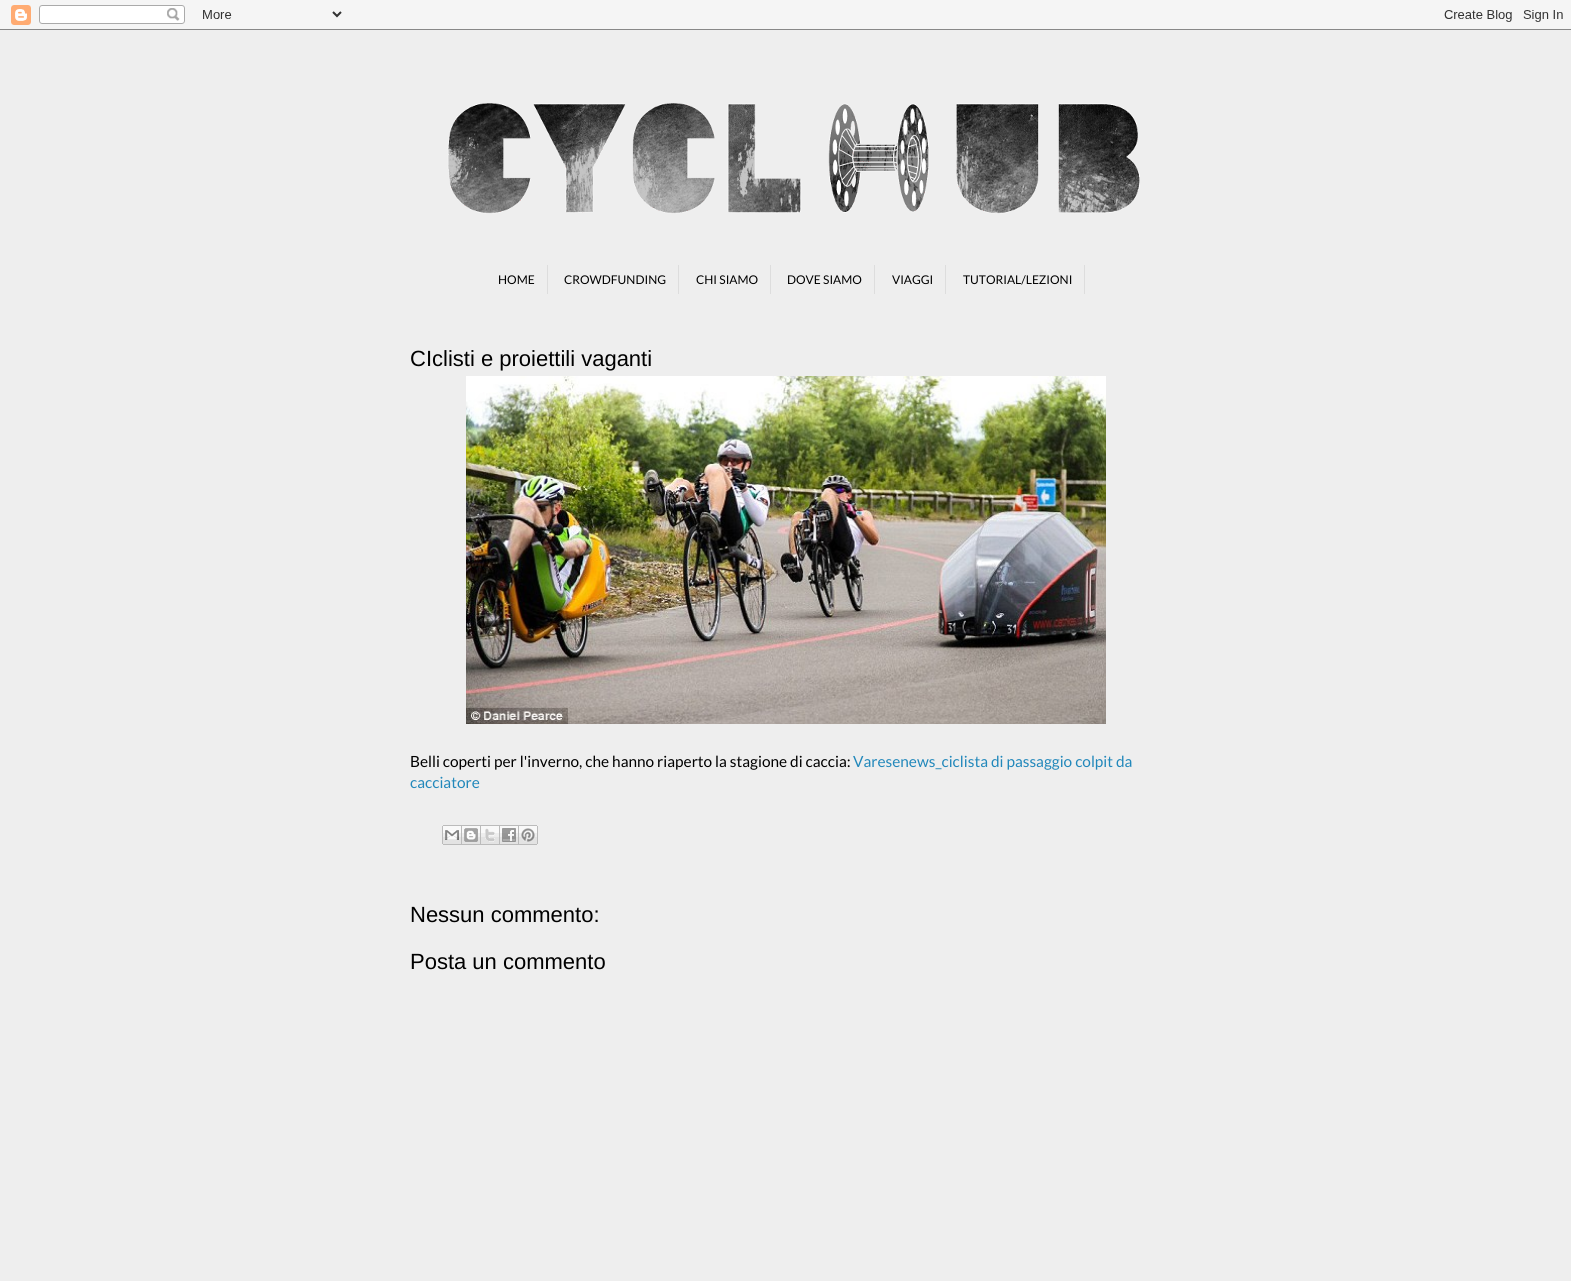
#include <cairo/cairo.h>
#include <math.h>
#include <stddef.h>


static void draw_image(cairo_t *cr, const char *path, double x, double y, double w, double h) {
  cairo_surface_t *image = cairo_image_surface_create_from_png(path);
  cairo_save(cr);
  cairo_set_source_surface(cr, image, x, y);
  cairo_rectangle(cr, x, y, w, h);
  cairo_fill(cr);
  cairo_restore(cr);
  cairo_surface_destroy(image);
}

static void draw(cairo_t *cr) {
  cairo_set_source_rgb(cr, 238 / 255.0, 238 / 255.0, 238 / 255.0);
  cairo_paint(cr);
  draw_image(cr, "images/1.png", 0, 0, 1571, 30);
  draw_image(cr, "images/2.png", 447, 103, 693, 111);
  cairo_set_source_rgb(cr, 221 / 255.0, 221 / 255.0, 221 / 255.0);
  cairo_rectangle(cr, 547, 265, 1, 29);
  cairo_fill(cr);
  cairo_rectangle(cr, 678, 265, 1, 29);
  cairo_fill(cr);
  cairo_rectangle(cr, 770, 265, 1, 29);
  cairo_fill(cr);
  cairo_rectangle(cr, 874, 265, 1, 29);
  cairo_fill(cr);
  cairo_rectangle(cr, 945, 265, 1, 29);
  cairo_fill(cr);
  cairo_rectangle(cr, 1084, 265, 1, 29);
  cairo_fill(cr);
  draw_image(cr, "images/3.png", 466, 376, 640, 348);
  draw_image(cr, "images/4.png", 442, 825, 20, 20);
  draw_image(cr, "images/5.png", 462, 825, 19, 20);
  draw_image(cr, "images/6.png", 481, 825, 19, 20);
  draw_image(cr, "images/7.png", 500, 825, 19, 20);
  draw_image(cr, "images/8.png", 519, 825, 19, 20);
  cairo_select_font_face(cr, "Lato", CAIRO_FONT_SLANT_NORMAL, CAIRO_FONT_WEIGHT_NORMAL);
  cairo_set_font_size(cr, 12);
  cairo_set_source_rgb(cr, 0, 0, 0);
  cairo_move_to(cr, 498, 284);
  cairo_show_text(cr, "HOME");
  cairo_move_to(cr, 564, 284);
  cairo_show_text(cr, "CROWDFUNDING");
  cairo_move_to(cr, 696, 284);
  cairo_show_text(cr, "CHI SIAMO");
  cairo_move_to(cr, 787, 284);
  cairo_show_text(cr, "DOVE SIAMO");
  cairo_move_to(cr, 892, 284);
  cairo_show_text(cr, "VIAGGI");
  cairo_move_to(cr, 963, 284);
  cairo_show_text(cr, "TUTORIAL/LEZIONI");
  cairo_select_font_face(cr, "Liberation Sans", CAIRO_FONT_SLANT_NORMAL, CAIRO_FONT_WEIGHT_NORMAL);
  cairo_set_font_size(cr, 22);
  cairo_move_to(cr, 410, 366);
  cairo_show_text(cr, "CIclisti e proiettili vaganti");
  cairo_select_font_face(cr, "Lato", CAIRO_FONT_SLANT_NORMAL, CAIRO_FONT_WEIGHT_NORMAL);
  cairo_set_font_size(cr, 15.4);
  cairo_move_to(cr, 410, 767);
  cairo_show_text(cr, "Belli coperti per l'inverno, che hanno riaperto la stagione di caccia:");
  cairo_set_source_rgb(cr, 34 / 255.0, 136 / 255.0, 187 / 255.0);
  cairo_move_to(cr, 853, 767);
  cairo_show_text(cr, "Varesenews_ciclista di passaggio colpit da");
  cairo_move_to(cr, 410, 788);
  cairo_show_text(cr, "cacciatore");
  cairo_select_font_face(cr, "Liberation Sans", CAIRO_FONT_SLANT_NORMAL, CAIRO_FONT_WEIGHT_NORMAL);
  cairo_set_font_size(cr, 22);
  cairo_set_source_rgb(cr, 0, 0, 0);
  cairo_move_to(cr, 410, 922);
  cairo_show_text(cr, "Nessun commento:");
  cairo_move_to(cr, 410, 969);
  cairo_show_text(cr, "Posta un commento");
}

int main(void) {
  cairo_surface_t *surface = cairo_image_surface_create(CAIRO_FORMAT_RGB24, 1571, 1281);
  cairo_t *cr = cairo_create(surface);
  cairo_font_options_t *options = cairo_font_options_create();
  cairo_font_options_set_hint_metrics(options, CAIRO_HINT_METRICS_OFF);
  cairo_font_options_set_hint_style(options, CAIRO_HINT_STYLE_NONE);
  cairo_set_font_options(cr, options);
  cairo_set_miter_limit(cr, 4);
  draw(cr);
  cairo_surface_write_to_png(surface, "out.png");
  cairo_font_options_destroy(options);
  cairo_destroy(cr);
  cairo_surface_destroy(surface);
  return 0;
}
